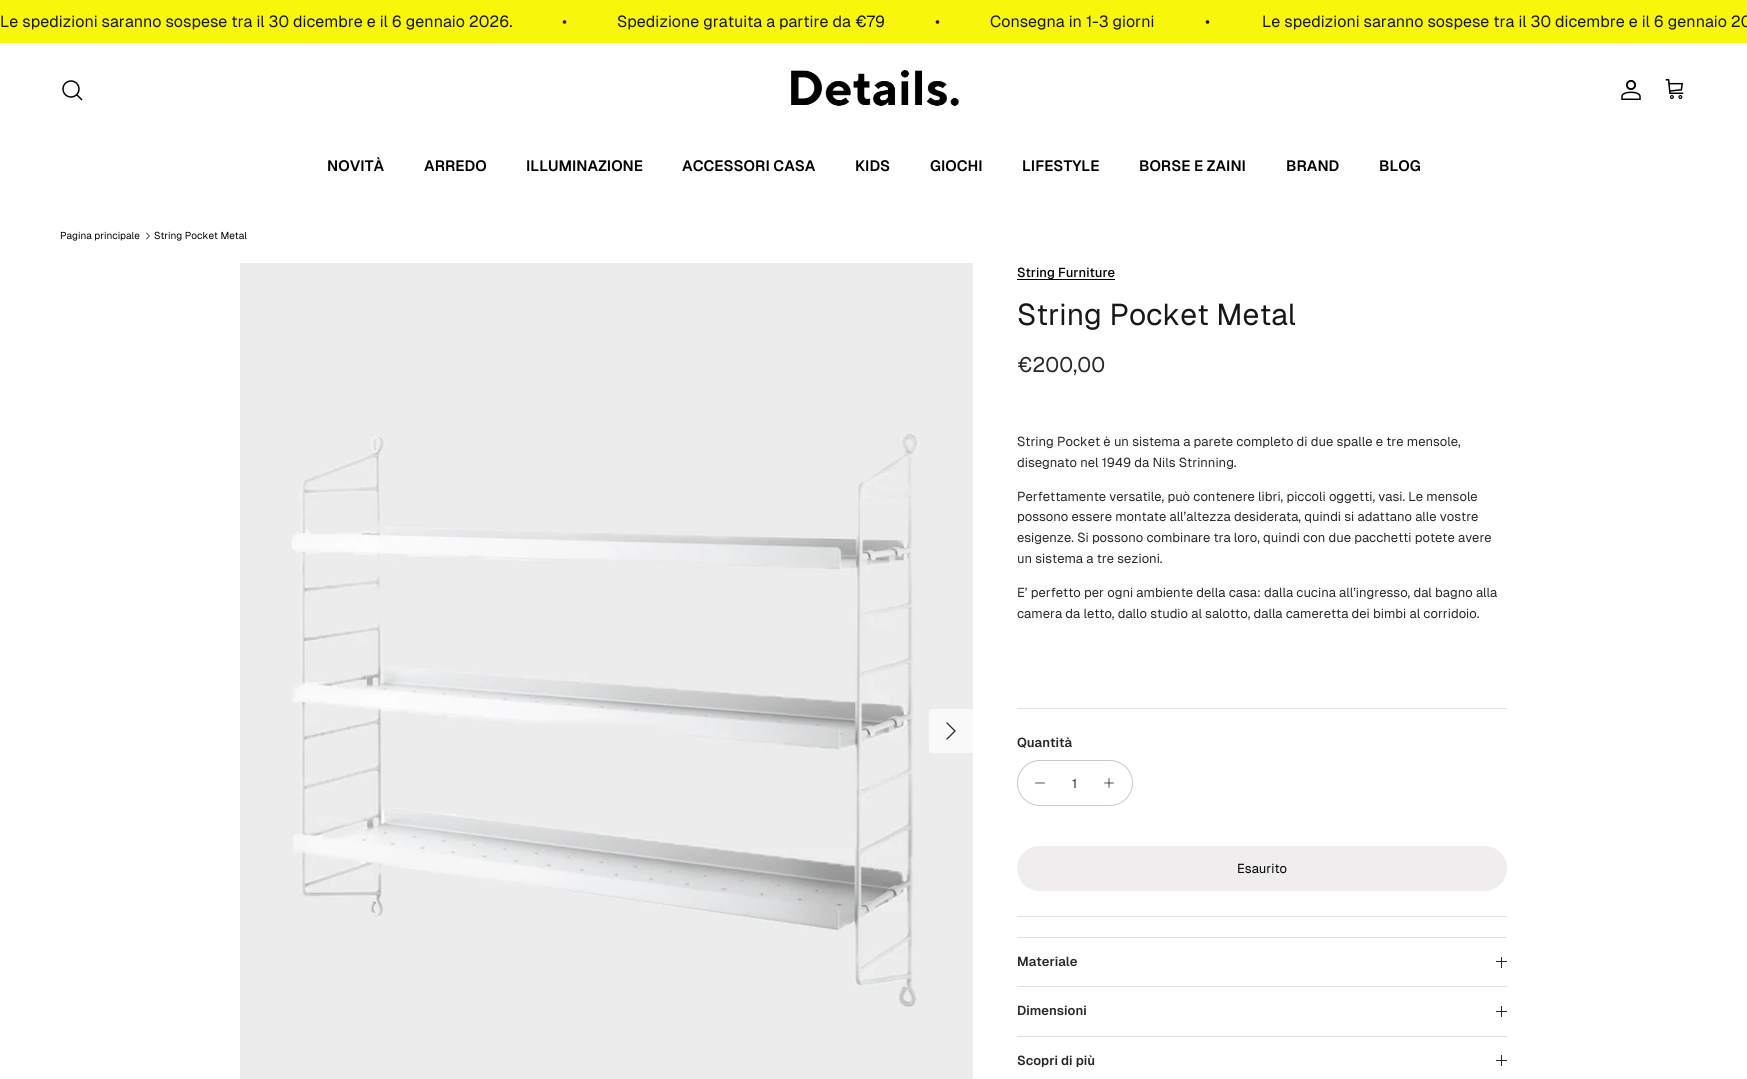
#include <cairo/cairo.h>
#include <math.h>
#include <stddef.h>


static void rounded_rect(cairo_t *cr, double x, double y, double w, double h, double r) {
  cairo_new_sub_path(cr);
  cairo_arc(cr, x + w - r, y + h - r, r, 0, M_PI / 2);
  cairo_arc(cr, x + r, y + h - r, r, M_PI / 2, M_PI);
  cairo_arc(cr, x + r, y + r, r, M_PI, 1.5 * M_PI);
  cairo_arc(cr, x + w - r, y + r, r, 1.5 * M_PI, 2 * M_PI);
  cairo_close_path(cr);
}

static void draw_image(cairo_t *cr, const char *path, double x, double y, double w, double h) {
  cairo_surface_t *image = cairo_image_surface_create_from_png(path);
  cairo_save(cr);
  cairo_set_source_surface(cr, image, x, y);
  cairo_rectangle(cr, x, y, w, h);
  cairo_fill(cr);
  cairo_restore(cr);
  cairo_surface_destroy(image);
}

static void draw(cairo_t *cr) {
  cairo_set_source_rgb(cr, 1, 1, 1);
  cairo_paint(cr);
  cairo_set_source_rgb(cr, 248 / 255.0, 246 / 255.0, 10 / 255.0);
  cairo_rectangle(cr, 0, 0, 1747, 43);
  cairo_fill(cr);
  cairo_arc(cr, 71, 89, 8, 0, 2 * M_PI);
  cairo_set_source_rgb(cr, 0, 0, 0);
  cairo_set_line_width(cr, 1.5);
  cairo_stroke(cr);
  cairo_new_path(cr);
  cairo_move_to(cr, 77, 95);
  cairo_line_to(cr, 81.5, 99.5);
  cairo_set_line_cap(cr, CAIRO_LINE_CAP_SQUARE);
  cairo_stroke(cr);
  draw_image(cr, "images/1.png", 791, 70, 168, 36);
  draw_image(cr, "images/2.png", 1621, 80, 20, 20);
  draw_image(cr, "images/3.png", 1665, 79, 19, 20);
  cairo_new_path(cr);
  cairo_move_to(cr, 146.5, 239);
  cairo_line_to(cr, 149.5, 236);
  cairo_line_to(cr, 146.5, 233);
  cairo_set_source_rgb(cr, 40 / 255.0, 40 / 255.0, 40 / 255.0);
  cairo_set_line_width(cr, 0.8);
  cairo_set_line_cap(cr, CAIRO_LINE_CAP_ROUND);
  cairo_set_line_join(cr, CAIRO_LINE_JOIN_ROUND);
  cairo_stroke(cr);
  draw_image(cr, "images/4.png", 240, 263, 733, 816);
  cairo_set_source_rgb(cr, 249 / 255.0, 249 / 255.0, 249 / 255.0);
  cairo_new_path(cr);
  cairo_move_to(cr, 932, 709);
  cairo_line_to(cr, 973, 709);
  cairo_line_to(cr, 973, 753);
  cairo_line_to(cr, 932, 753);
  cairo_curve_to(cr, 930.5, 753, 929, 751.5, 929, 750);
  cairo_line_to(cr, 929, 712);
  cairo_curve_to(cr, 929, 710.5, 930.5, 709, 932, 709);
  cairo_close_path(cr);
  cairo_fill(cr);
  cairo_new_path(cr);
  cairo_move_to(cr, 947, 739);
  cairo_line_to(cr, 955, 731);
  cairo_line_to(cr, 947, 723);
  cairo_set_source_rgb(cr, 40 / 255.0, 40 / 255.0, 40 / 255.0);
  cairo_set_line_width(cr, 1.3);
  cairo_stroke(cr);
  cairo_set_source_rgb(cr, 0, 0, 0);
  cairo_rectangle(cr, 1017, 279, 98, 1);
  cairo_fill(cr);
  cairo_set_source_rgb(cr, 225 / 255.0, 225 / 255.0, 225 / 255.0);
  cairo_rectangle(cr, 1017, 708, 490, 1);
  cairo_fill(cr);
  rounded_rect(cr, 1017.5, 760.5, 115, 45, 22.5);
  cairo_set_source_rgb(cr, 201 / 255.0, 201 / 255.0, 201 / 255.0);
  cairo_set_line_width(cr, 1);
  cairo_set_line_cap(cr, CAIRO_LINE_CAP_BUTT);
  cairo_set_line_join(cr, CAIRO_LINE_JOIN_MITER);
  cairo_stroke(cr);
  cairo_new_path(cr);
  cairo_move_to(cr, 1035.5, 783);
  cairo_line_to(cr, 1044.5, 783);
  cairo_set_source_rgb(cr, 0, 0, 0);
  cairo_set_line_width(cr, 0.7);
  cairo_set_line_cap(cr, CAIRO_LINE_CAP_ROUND);
  cairo_set_line_join(cr, CAIRO_LINE_JOIN_ROUND);
  cairo_stroke(cr);
  cairo_new_path(cr);
  cairo_move_to(cr, 1109, 778.5);
  cairo_line_to(cr, 1109, 787.5);
  cairo_move_to(cr, 1104.5, 783);
  cairo_line_to(cr, 1113.5, 783);
  cairo_stroke(cr);
  cairo_set_source_rgb(cr, 239 / 255.0, 237 / 255.0, 237 / 255.0);
  rounded_rect(cr, 1017.5, 846.5, 489, 44, 22);
  cairo_fill_preserve(cr);
  cairo_set_line_width(cr, 1);
  cairo_set_line_cap(cr, CAIRO_LINE_CAP_BUTT);
  cairo_set_line_join(cr, CAIRO_LINE_JOIN_MITER);
  cairo_stroke(cr);
  cairo_set_source_rgb(cr, 225 / 255.0, 225 / 255.0, 225 / 255.0);
  cairo_rectangle(cr, 1017, 916, 490, 1);
  cairo_fill(cr);
  cairo_set_source_rgb(cr, 223 / 255.0, 223 / 255.0, 223 / 255.0);
  cairo_rectangle(cr, 1017, 937, 490, 1);
  cairo_fill(cr);
  cairo_rectangle(cr, 1017, 986, 490, 1);
  cairo_fill(cr);
  cairo_set_source_rgb(cr, 40 / 255.0, 40 / 255.0, 40 / 255.0);
  cairo_rectangle(cr, 1501, 957, 1, 11);
  cairo_fill(cr);
  cairo_rectangle(cr, 1496, 961, 11, 1);
  cairo_fill(cr);
  cairo_set_source_rgb(cr, 223 / 255.0, 223 / 255.0, 223 / 255.0);
  cairo_rectangle(cr, 1017, 1036, 490, 1);
  cairo_fill(cr);
  cairo_set_source_rgb(cr, 40 / 255.0, 40 / 255.0, 40 / 255.0);
  cairo_rectangle(cr, 1501, 1006, 1, 11);
  cairo_fill(cr);
  cairo_rectangle(cr, 1496, 1011, 11, 1);
  cairo_fill(cr);
  cairo_rectangle(cr, 1501, 1055, 1, 11);
  cairo_fill(cr);
  cairo_rectangle(cr, 1496, 1060, 11, 1);
  cairo_fill(cr);
  cairo_select_font_face(cr, "Geist", CAIRO_FONT_SLANT_NORMAL, CAIRO_FONT_WEIGHT_NORMAL);
  cairo_set_font_size(cr, 16);
  cairo_set_source_rgb(cr, 23 / 255.0, 23 / 255.0, 23 / 255.0);
  cairo_move_to(cr, 0, 27);
  cairo_show_text(cr, "Le spedizioni saranno sospese tra il 30 dicembre e il 6 gennaio 2026.");
  cairo_move_to(cr, 562, 27);
  cairo_show_text(cr, "•");
  cairo_move_to(cr, 617, 27);
  cairo_show_text(cr, "Spedizione gratuita a partire da €79");
  cairo_move_to(cr, 935, 27);
  cairo_show_text(cr, "•");
  cairo_move_to(cr, 990, 27);
  cairo_show_text(cr, "Consegna in 1-3 giorni");
  cairo_move_to(cr, 1205, 27);
  cairo_show_text(cr, "•");
  cairo_move_to(cr, 1262, 27);
  cairo_show_text(cr, "Le spedizioni saranno sospese tra il 30 dicembre e il 6 gennaio 20");
  cairo_select_font_face(cr, "Geist SemiBold", CAIRO_FONT_SLANT_NORMAL, CAIRO_FONT_WEIGHT_NORMAL);
  cairo_set_font_size(cr, 15);
  cairo_set_source_rgb(cr, 0, 0, 0);
  cairo_move_to(cr, 327, 171);
  cairo_show_text(cr, "NOVITÀ");
  cairo_move_to(cr, 424, 171);
  cairo_show_text(cr, "ARREDO");
  cairo_move_to(cr, 526, 171);
  cairo_show_text(cr, "ILLUMINAZIONE");
  cairo_move_to(cr, 682, 171);
  cairo_show_text(cr, "ACCESSORI CASA");
  cairo_move_to(cr, 855, 171);
  cairo_show_text(cr, "KIDS");
  cairo_move_to(cr, 930, 171);
  cairo_show_text(cr, "GIOCHI");
  cairo_move_to(cr, 1022, 171);
  cairo_show_text(cr, "LIFESTYLE");
  cairo_move_to(cr, 1139, 171);
  cairo_show_text(cr, "BORSE E ZAINI");
  cairo_move_to(cr, 1286, 171);
  cairo_show_text(cr, "BRAND");
  cairo_move_to(cr, 1379, 171);
  cairo_show_text(cr, "BLOG");
  cairo_select_font_face(cr, "Geist", CAIRO_FONT_SLANT_NORMAL, CAIRO_FONT_WEIGHT_NORMAL);
  cairo_set_font_size(cr, 10);
  cairo_move_to(cr, 60, 239);
  cairo_show_text(cr, "Pagina principale");
  cairo_move_to(cr, 154, 239);
  cairo_show_text(cr, "String Pocket Metal");
  cairo_select_font_face(cr, "Geist Medium", CAIRO_FONT_SLANT_NORMAL, CAIRO_FONT_WEIGHT_NORMAL);
  cairo_set_font_size(cr, 13);
  cairo_move_to(cr, 1017, 277);
  cairo_show_text(cr, "String Furniture");
  cairo_select_font_face(cr, "Geist", CAIRO_FONT_SLANT_NORMAL, CAIRO_FONT_WEIGHT_NORMAL);
  cairo_set_font_size(cr, 30);
  cairo_set_source_rgb(cr, 23 / 255.0, 23 / 255.0, 23 / 255.0);
  cairo_move_to(cr, 1017, 325);
  cairo_show_text(cr, "String Pocket Metal");
  cairo_set_font_size(cr, 21);
  cairo_set_source_rgb(cr, 40 / 255.0, 40 / 255.0, 40 / 255.0);
  cairo_move_to(cr, 1017, 372);
  cairo_show_text(cr, "€200,00");
  cairo_set_font_size(cr, 13);
  cairo_move_to(cr, 1017, 446);
  cairo_show_text(cr, "String Pocket è un sistema a parete completo di due spalle e tre mensole,");
  cairo_move_to(cr, 1017, 467);
  cairo_show_text(cr, "disegnato nel 1949 da Nils Strinning.");
  cairo_move_to(cr, 1017, 501);
  cairo_show_text(cr, "Perfettamente versatile, può contenere libri, piccoli oggetti, vasi. Le mensole");
  cairo_move_to(cr, 1017, 521);
  cairo_show_text(cr, "possono essere montate all’altezza desiderata, quindi si adattano alle vostre");
  cairo_move_to(cr, 1017, 542);
  cairo_show_text(cr, "esigenze. Si possono combinare tra loro, quindi con due pacchetti potete avere");
  cairo_move_to(cr, 1017, 563);
  cairo_show_text(cr, "un sistema a tre sezioni.");
  cairo_move_to(cr, 1017, 597);
  cairo_show_text(cr, "E’ perfetto per ogni ambiente della casa: dalla cucina all’ingresso, dal bagno alla");
  cairo_move_to(cr, 1017, 618);
  cairo_show_text(cr, "camera da letto, dallo studio al salotto, dalla cameretta dei bimbi al corridoio.");
  cairo_select_font_face(cr, "Geist SemiBold", CAIRO_FONT_SLANT_NORMAL, CAIRO_FONT_WEIGHT_NORMAL);
  cairo_move_to(cr, 1017, 747);
  cairo_show_text(cr, "Quantità");
  cairo_select_font_face(cr, "Geist", CAIRO_FONT_SLANT_NORMAL, CAIRO_FONT_WEIGHT_NORMAL);
  cairo_move_to(cr, 1072, 788);
  cairo_show_text(cr, "1");
  cairo_set_source_rgb(cr, 0, 0, 0);
  cairo_move_to(cr, 1237, 873);
  cairo_show_text(cr, "Esaurito");
  cairo_select_font_face(cr, "Geist SemiBold", CAIRO_FONT_SLANT_NORMAL, CAIRO_FONT_WEIGHT_NORMAL);
  cairo_set_source_rgb(cr, 40 / 255.0, 40 / 255.0, 40 / 255.0);
  cairo_move_to(cr, 1017, 966);
  cairo_show_text(cr, "Materiale");
  cairo_move_to(cr, 1017, 1015);
  cairo_show_text(cr, "Dimensioni");
  cairo_move_to(cr, 1017, 1065);
  cairo_show_text(cr, "Scopri di più");
}

int main(void) {
  cairo_surface_t *surface = cairo_image_surface_create(CAIRO_FORMAT_RGB24, 1747, 1079);
  cairo_t *cr = cairo_create(surface);
  cairo_font_options_t *options = cairo_font_options_create();
  cairo_font_options_set_hint_metrics(options, CAIRO_HINT_METRICS_OFF);
  cairo_font_options_set_hint_style(options, CAIRO_HINT_STYLE_NONE);
  cairo_set_font_options(cr, options);
  cairo_set_miter_limit(cr, 4);
  draw(cr);
  cairo_surface_write_to_png(surface, "out.png");
  cairo_font_options_destroy(options);
  cairo_destroy(cr);
  cairo_surface_destroy(surface);
  return 0;
}
